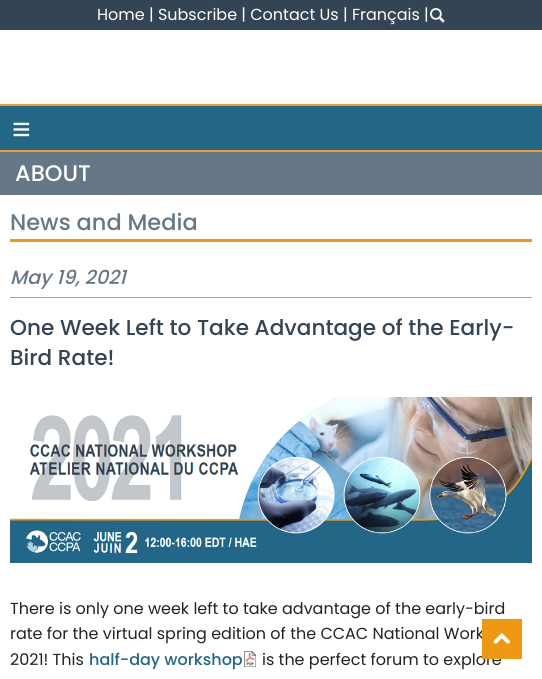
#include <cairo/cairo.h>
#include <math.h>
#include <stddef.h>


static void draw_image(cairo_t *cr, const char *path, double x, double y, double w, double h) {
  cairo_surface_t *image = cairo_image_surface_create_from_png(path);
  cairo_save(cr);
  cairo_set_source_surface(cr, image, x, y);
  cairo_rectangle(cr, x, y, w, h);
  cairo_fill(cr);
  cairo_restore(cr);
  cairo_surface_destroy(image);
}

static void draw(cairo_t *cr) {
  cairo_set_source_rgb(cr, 1, 1, 1);
  cairo_paint(cr);
  cairo_set_source_rgb(cr, 51 / 255.0, 68 / 255.0, 85 / 255.0);
  cairo_rectangle(cr, 0, 0, 542, 30);
  cairo_fill(cr);
  draw_image(cr, "images/1.png", 430, 8, 15, 15);
  cairo_set_source_rgb(cr, 34 / 255.0, 102 / 255.0, 136 / 255.0);
  cairo_rectangle(cr, 0, 106, 542, 44);
  cairo_fill(cr);
  cairo_set_source_rgb(cr, 238 / 255.0, 155 / 255.0, 36 / 255.0);
  cairo_rectangle(cr, 0, 104, 542, 2);
  cairo_fill(cr);
  cairo_rectangle(cr, 0, 150, 542, 2);
  cairo_fill(cr);
  cairo_set_source_rgb(cr, 102 / 255.0, 119 / 255.0, 136 / 255.0);
  cairo_rectangle(cr, 0, 152, 542, 43);
  cairo_fill(cr);
  cairo_set_source_rgb(cr, 238 / 255.0, 153 / 255.0, 17 / 255.0);
  cairo_rectangle(cr, 10, 239, 522, 3);
  cairo_fill(cr);
  cairo_rectangle(cr, 10, 297, 522, 1);
  cairo_fill(cr);
  draw_image(cr, "images/2.png", 10, 397, 522, 166);
  draw_image(cr, "images/3.png", 244, 651, 12, 16);
  cairo_select_font_face(cr, "Poppins", CAIRO_FONT_SLANT_NORMAL, CAIRO_FONT_WEIGHT_NORMAL);
  cairo_set_font_size(cr, 16);
  cairo_set_source_rgb(cr, 1, 1, 1);
  cairo_move_to(cr, 97, 20);
  cairo_show_text(cr, "Home | Subscribe | Contact Us | Français |");
  cairo_select_font_face(cr, "Liberation Sans", CAIRO_FONT_SLANT_NORMAL, CAIRO_FONT_WEIGHT_NORMAL);
  cairo_set_font_size(cr, 32);
  cairo_move_to(cr, 12, 140);
  cairo_show_text(cr, "≡");
  cairo_select_font_face(cr, "Poppins Medium", CAIRO_FONT_SLANT_NORMAL, CAIRO_FONT_WEIGHT_NORMAL);
  cairo_set_font_size(cr, 22.5);
  cairo_move_to(cr, 15, 181);
  cairo_show_text(cr, "ABOUT");
  cairo_set_source_rgb(cr, 102 / 255.0, 119 / 255.0, 136 / 255.0);
  cairo_move_to(cr, 10, 230);
  cairo_show_text(cr, "News and Media");
  cairo_select_font_face(cr, "Poppins Medium", CAIRO_FONT_SLANT_ITALIC, CAIRO_FONT_WEIGHT_NORMAL);
  cairo_set_font_size(cr, 19.25);
  cairo_move_to(cr, 10, 284);
  cairo_show_text(cr, "May 19, 2021");
  cairo_select_font_face(cr, "Poppins Medium", CAIRO_FONT_SLANT_NORMAL, CAIRO_FONT_WEIGHT_NORMAL);
  cairo_set_font_size(cr, 21.6);
  cairo_set_source_rgb(cr, 51 / 255.0, 68 / 255.0, 85 / 255.0);
  cairo_move_to(cr, 10, 335);
  cairo_show_text(cr, "One Week Left to Take Advantage of the Early-");
  cairo_move_to(cr, 10, 365);
  cairo_show_text(cr, "Bird Rate!");
  cairo_select_font_face(cr, "Poppins", CAIRO_FONT_SLANT_NORMAL, CAIRO_FONT_WEIGHT_NORMAL);
  cairo_set_font_size(cr, 16);
  cairo_set_source_rgb(cr, 34 / 255.0, 34 / 255.0, 34 / 255.0);
  cairo_move_to(cr, 10, 614);
  cairo_show_text(cr, "There is only one week left to take advantage of the early-bird");
  cairo_move_to(cr, 10, 639);
  cairo_show_text(cr, "rate for the virtual spring edition of the CCAC National Work");
  cairo_move_to(cr, 10, 665);
  cairo_show_text(cr, "2021! This");
  cairo_select_font_face(cr, "Poppins Medium", CAIRO_FONT_SLANT_NORMAL, CAIRO_FONT_WEIGHT_NORMAL);
  cairo_set_source_rgb(cr, 34 / 255.0, 102 / 255.0, 136 / 255.0);
  cairo_move_to(cr, 89, 665);
  cairo_show_text(cr, "half-day workshop");
  cairo_select_font_face(cr, "Poppins", CAIRO_FONT_SLANT_NORMAL, CAIRO_FONT_WEIGHT_NORMAL);
  cairo_set_source_rgb(cr, 34 / 255.0, 34 / 255.0, 34 / 255.0);
  cairo_move_to(cr, 262, 665);
  cairo_show_text(cr, "is the perfect forum to explore");
  cairo_set_source_rgb(cr, 238 / 255.0, 153 / 255.0, 17 / 255.0);
  cairo_rectangle(cr, 482, 619, 40, 40);
  cairo_fill(cr);
  draw_image(cr, "images/4.png", 493, 633, 18, 11);
}

int main(void) {
  cairo_surface_t *surface = cairo_image_surface_create(CAIRO_FORMAT_RGB24, 542, 679);
  cairo_t *cr = cairo_create(surface);
  cairo_font_options_t *options = cairo_font_options_create();
  cairo_font_options_set_hint_metrics(options, CAIRO_HINT_METRICS_OFF);
  cairo_font_options_set_hint_style(options, CAIRO_HINT_STYLE_NONE);
  cairo_set_font_options(cr, options);
  cairo_set_miter_limit(cr, 4);
  draw(cr);
  cairo_surface_write_to_png(surface, "out.png");
  cairo_font_options_destroy(options);
  cairo_destroy(cr);
  cairo_surface_destroy(surface);
  return 0;
}
